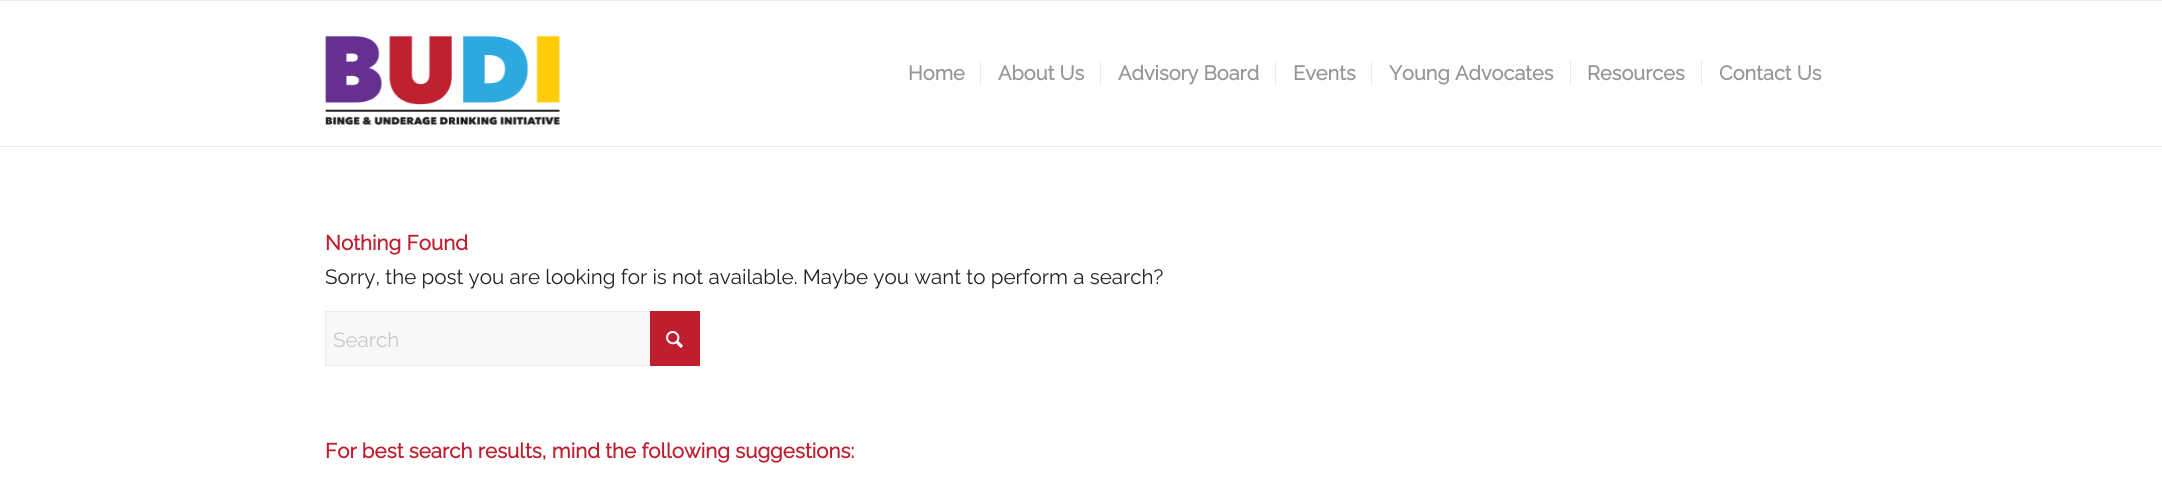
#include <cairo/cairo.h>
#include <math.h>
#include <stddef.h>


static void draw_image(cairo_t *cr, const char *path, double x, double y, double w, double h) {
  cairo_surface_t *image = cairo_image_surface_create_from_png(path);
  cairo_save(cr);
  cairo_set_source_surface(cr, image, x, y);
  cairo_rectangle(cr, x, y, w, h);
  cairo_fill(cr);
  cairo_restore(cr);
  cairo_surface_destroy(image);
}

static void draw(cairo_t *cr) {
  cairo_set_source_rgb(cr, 1, 1, 1);
  cairo_paint(cr);
  cairo_set_source_rgb(cr, 235 / 255.0, 235 / 255.0, 235 / 255.0);
  cairo_rectangle(cr, 0, 0, 2162, 1);
  cairo_fill(cr);
  cairo_rectangle(cr, 0, 146, 2162, 1);
  cairo_fill(cr);
  draw_image(cr, "images/1.png", 325, 35, 235, 91);
  cairo_rectangle(cr, 980, 61, 1, 24);
  cairo_fill(cr);
  cairo_rectangle(cr, 1100, 61, 1, 24);
  cairo_fill(cr);
  cairo_rectangle(cr, 1275, 61, 1, 24);
  cairo_fill(cr);
  cairo_rectangle(cr, 1371, 61, 1, 24);
  cairo_fill(cr);
  cairo_rectangle(cr, 1570, 61, 1, 24);
  cairo_fill(cr);
  cairo_rectangle(cr, 1701, 61, 1, 24);
  cairo_fill(cr);
  cairo_set_source_rgb(cr, 248 / 255.0, 248 / 255.0, 248 / 255.0);
  cairo_rectangle(cr, 326, 312, 324, 53);
  cairo_fill(cr);
  cairo_rectangle(cr, 325.5, 311.5, 374, 54);
  cairo_set_source_rgb(cr, 235 / 255.0, 235 / 255.0, 235 / 255.0);
  cairo_set_line_width(cr, 1);
  cairo_stroke(cr);
  cairo_set_source_rgb(cr, 191 / 255.0, 30 / 255.0, 46 / 255.0);
  cairo_rectangle(cr, 650, 311, 50, 55);
  cairo_fill(cr);
  draw_image(cr, "images/2.png", 666, 331, 17, 17);
  cairo_select_font_face(cr, "Raleway", CAIRO_FONT_SLANT_NORMAL, CAIRO_FONT_WEIGHT_BOLD);
  cairo_set_font_size(cr, 20);
  cairo_set_source_rgb(cr, 150 / 255.0, 150 / 255.0, 150 / 255.0);
  cairo_move_to(cr, 908, 80);
  cairo_show_text(cr, "Home");
  cairo_move_to(cr, 998, 80);
  cairo_show_text(cr, "About Us");
  cairo_move_to(cr, 1118, 80);
  cairo_show_text(cr, "Advisory Board");
  cairo_move_to(cr, 1293, 80);
  cairo_show_text(cr, "Events");
  cairo_move_to(cr, 1389, 80);
  cairo_show_text(cr, "Young Advocates");
  cairo_move_to(cr, 1587, 80);
  cairo_show_text(cr, "Resources");
  cairo_move_to(cr, 1719, 80);
  cairo_show_text(cr, "Contact Us");
  cairo_set_font_size(cr, 20.6);
  cairo_set_source_rgb(cr, 191 / 255.0, 30 / 255.0, 46 / 255.0);
  cairo_move_to(cr, 325, 250);
  cairo_show_text(cr, "Nothing Found");
  cairo_select_font_face(cr, "Raleway Thin", CAIRO_FONT_SLANT_NORMAL, CAIRO_FONT_WEIGHT_NORMAL);
  cairo_set_source_rgb(cr, 35 / 255.0, 31 / 255.0, 32 / 255.0);
  cairo_move_to(cr, 325, 284);
  cairo_show_text(cr, "Sorry, the post you are looking for is not available. Maybe you want to perform a search?");
  cairo_set_source_rgb(cr, 199 / 255.0, 199 / 255.0, 199 / 255.0);
  cairo_move_to(cr, 333, 347);
  cairo_show_text(cr, "Search");
  cairo_select_font_face(cr, "Raleway", CAIRO_FONT_SLANT_NORMAL, CAIRO_FONT_WEIGHT_BOLD);
  cairo_set_source_rgb(cr, 191 / 255.0, 30 / 255.0, 46 / 255.0);
  cairo_move_to(cr, 325, 458);
  cairo_show_text(cr, "For best search results, mind the following suggestions:");
}

int main(void) {
  cairo_surface_t *surface = cairo_image_surface_create(CAIRO_FORMAT_RGB24, 2162, 501);
  cairo_t *cr = cairo_create(surface);
  cairo_font_options_t *options = cairo_font_options_create();
  cairo_font_options_set_hint_metrics(options, CAIRO_HINT_METRICS_OFF);
  cairo_font_options_set_hint_style(options, CAIRO_HINT_STYLE_NONE);
  cairo_set_font_options(cr, options);
  cairo_set_miter_limit(cr, 4);
  draw(cr);
  cairo_surface_write_to_png(surface, "out.png");
  cairo_font_options_destroy(options);
  cairo_destroy(cr);
  cairo_surface_destroy(surface);
  return 0;
}
